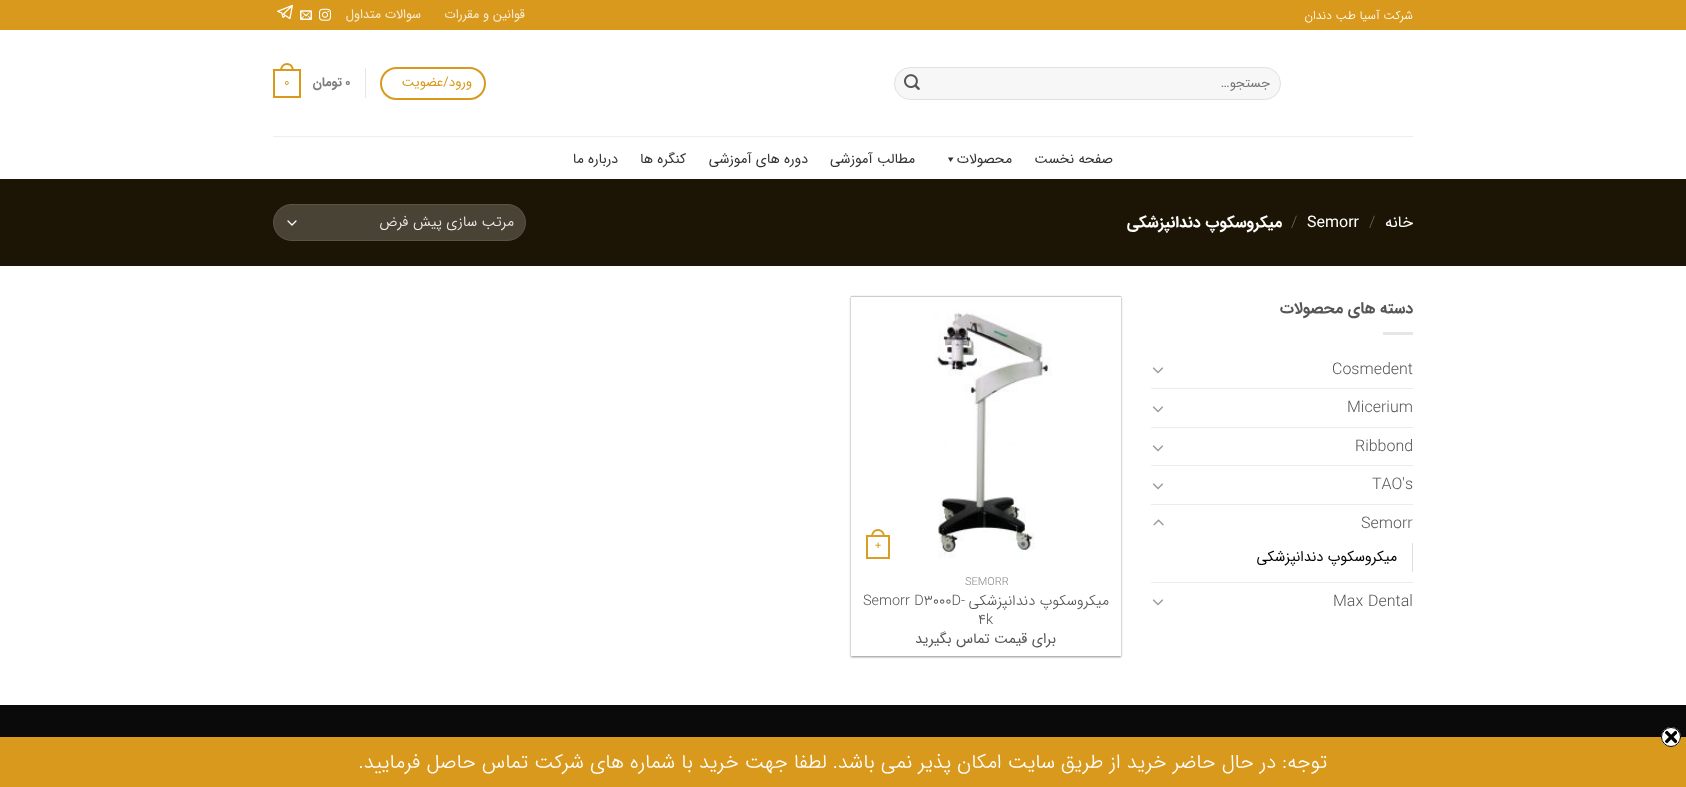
(async () => {
  const canvas = document.querySelector("canvas");
  canvas.width = 1686;
  canvas.height = 787;
  const ctx = canvas.getContext("2d");
  ctx.miterLimit = 4;
  ctx.fontKerning = "normal";
  async function loadImage(src) {
    const img = new Image();
    img.src = src;
    await img.decode();
    return img;
  }
  let path;

  ctx.fillStyle = "#ffffff";
  ctx.fillRect(0, 0, 1686, 787);
  ctx.fillStyle = "#d8991c";
  ctx.fillRect(0, 0, 1686, 30);
  ctx.drawImage(await loadImage("img/1.png"), 319, 8, 12, 13);
  ctx.drawImage(await loadImage("img/2.png"), 300, 10, 12, 10);
  ctx.drawImage(await loadImage("img/3.png"), 277, 4, 16, 16);
  ctx.fillStyle = "#f7f7f7";
  ctx.beginPath();
  ctx.roundRect(894, 67, 387, 33, 16.5);
  ctx.fill();
  ctx.beginPath();
  ctx.roundRect(894.5, 67.5, 386, 32, 16);
  ctx.strokeStyle = "rgba(0, 0, 0, 0.09)";
  ctx.stroke();
  ctx.drawImage(await loadImage("img/4.png"), 904, 74, 16, 16);
  ctx.beginPath();
  ctx.roundRect(381, 68, 104, 31, 15.5);
  ctx.strokeStyle = "#d8991c";
  ctx.lineWidth = 2;
  ctx.stroke();
  ctx.fillStyle = "#e6e6e6";
  ctx.fillRect(365, 68, 1, 30);
  ctx.strokeRect(274, 70, 26, 27);
  ctx.fillStyle = "#d8991c";
  path = new Path2D("M287 63C291.5 63 294 67 294 71H280C280 67 282.5 63 287 63ZM287 65C290.5 65 292 68 292 71H282C282 68 283.5 65 287 65Z");
  ctx.fill(path, "evenodd");
  ctx.fillStyle = "#eeeeee";
  ctx.fillRect(273, 136, 1140, 1);
  ctx.fillStyle = "#333333";
  path = new Path2D("M953.5 157.5L950.5 162L948 157.5Z");
  ctx.fill(path);
  ctx.fillStyle = "#1c1404";
  ctx.fillRect(0, 179, 1686, 87);
  ctx.fillStyle = "#494336";
  ctx.beginPath();
  ctx.roundRect(273, 204, 253, 37, 18.5);
  ctx.fill();
  path = new Path2D("M288 221L292 225L296 221");
  ctx.strokeStyle = "#ffffff";
  ctx.lineWidth = 1.3;
  ctx.lineCap = "round";
  ctx.lineJoin = "round";
  ctx.stroke(path);
  ctx.beginPath();
  ctx.roundRect(273.5, 204.5, 252, 36, 18);
  ctx.strokeStyle = "rgba(255, 255, 255, 0.09)";
  ctx.lineWidth = 1;
  ctx.lineJoin = "miter";
  ctx.stroke();
  ctx.fillStyle = "#e6e6e6";
  ctx.fillRect(1383, 332, 30, 3);
  ctx.drawImage(await loadImage("img/5.png"), 1152, 367, 12, 7);
  ctx.fillStyle = "#ececec";
  ctx.fillRect(1151, 388, 262, 1);
  ctx.drawImage(await loadImage("img/5.png"), 1152, 406, 12, 7);
  ctx.fillRect(1151, 427, 262, 1);
  ctx.drawImage(await loadImage("img/5.png"), 1152, 445, 12, 7);
  ctx.fillRect(1151, 465, 262, 1);
  ctx.drawImage(await loadImage("img/5.png"), 1152, 483, 12, 7);
  ctx.fillRect(1151, 504, 262, 1);
  ctx.drawImage(await loadImage("img/6.png"), 1153, 519, 11, 7);
  ctx.fillStyle = "#dddddd";
  ctx.fillRect(1412, 543, 1, 29);
  ctx.fillStyle = "#ececec";
  ctx.fillRect(1151, 582, 262, 1);
  ctx.drawImage(await loadImage("img/5.png"), 1152, 599, 12, 7);
  ctx.save();
  path = new Path2D("M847 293H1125V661H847ZM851 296H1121V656H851Z");
  ctx.clip(path, "evenodd");
  ctx.fillStyle = "rgba(0, 0, 0, 0.24)";
  ctx.filter = "blur(1px)";
  ctx.beginPath();
  ctx.rect(851, 297, 270, 360);
  ctx.fill();
  ctx.filter = "none";
  ctx.filter = "blur(1px)";
  ctx.beginPath();
  ctx.rect(851, 297, 270, 360);
  ctx.fill();
  ctx.filter = "none";
  ctx.restore();
  ctx.fillStyle = "#cccccc";
  ctx.fillRect(851, 296, 270, 1);
  ctx.drawImage(await loadImage("img/7.png"), 934, 310, 118, 249);
  ctx.strokeStyle = "#da9e27";
  ctx.lineWidth = 2;
  ctx.strokeRect(867, 536, 22, 22);
  ctx.fillStyle = "#da9e27";
  path = new Path2D("M878 529C882.5 529 885 533 885 537H871C871 533 873.5 529 878 529ZM878 531C881.5 531 883 534 883 537H873C873 534 874.5 531 878 531Z");
  ctx.fill(path, "evenodd");
  ctx.fillStyle = "#0a0a0a";
  ctx.fillRect(0, 705, 1686, 32);
  ctx.fillStyle = "#d8991c";
  ctx.fillRect(0, 737, 1686, 50);
  ctx.fillStyle = "#ffffff";
  ctx.beginPath();
  ctx.arc(1671, 737, 10, 0, Math.PI * 2);
  ctx.fill();
  ctx.drawImage(await loadImage("img/8.png"), 1665, 730, 12, 14);
  ctx.beginPath();
  ctx.arc(1671, 737, 9.5, 0, Math.PI * 2);
  ctx.strokeStyle = "#000000";
  ctx.lineWidth = 1;
  ctx.stroke();
  ctx.direction = "rtl";
  ctx.font = "300 12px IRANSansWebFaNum";
  ctx.fillText("شرکت آسیا طب دندان", 1413, 19);
  ctx.font = "12.75px IRANSansWebFaNum";
  ctx.fillStyle = "#f7ebd2";
  ctx.fillText("قوانین و مقررات", 525, 18);
  ctx.fillText("سوالات متداول", 421, 18);
  ctx.font = "13.25px IRANSansWebFaNum";
  ctx.fillStyle = "#757575";
  ctx.fillText("جستجو…", 1270, 87);
  ctx.letterSpacing = "0.5px";
  ctx.fillStyle = "#d8991c";
  ctx.fillText("ورود/عضویت", 472, 86);
  ctx.letterSpacing = "0.25px";
  ctx.direction = "ltr";
  ctx.font = "bold 12.75px IRANSansWebFaNum";
  ctx.fillStyle = "#7d7d7d";
  ctx.fillText("۰", 345, 86);
  ctx.direction = "rtl";
  ctx.fillText("تومان", 342, 86);
  ctx.direction = "ltr";
  ctx.font = "12.75px IRANSansWebFaNum";
  ctx.fillStyle = "#d8991c";
  ctx.fillText("0", 284, 86);
  ctx.letterSpacing = "0px";
  ctx.direction = "rtl";
  ctx.font = "14px IRANSansWebFaNum";
  ctx.fillStyle = "#333333";
  for (const [text, x, y] of [
    ["صفحه نخست", 1113, 163],
    ["محصولات", 1012, 163],
    ["مطالب آموزشی", 915, 163],
    ["دوره های آموزشی", 808, 163],
    ["کنگره ها", 686, 163],
    ["درباره ما", 618, 163],
  ]) {
    ctx.fillText(text, x, y);
  }
  ctx.font = "16px IRANSansWebFaNum";
  ctx.fillStyle = "#ffffff";
  ctx.fillText("خانه", 1413, 227);
  ctx.direction = "ltr";
  ctx.font = "300 16px IRANSansWebFaNum";
  ctx.fillStyle = "#6b665c";
  ctx.fillText("/", 1369, 227);
  ctx.font = "16px IRANSansWebFaNum";
  ctx.fillStyle = "#ffffff";
  ctx.fillText("Semorr", 1307, 227);
  ctx.font = "300 16px IRANSansWebFaNum";
  ctx.fillStyle = "#6b665c";
  ctx.fillText("/", 1291, 227);
  ctx.direction = "rtl";
  ctx.font = "bold 16px IRANSansWebFaNum";
  ctx.fillStyle = "#ffffff";
  ctx.fillText("میکروسکوپ دندانپزشکی", 1282, 227);
  ctx.font = "300 14.5px IRANSansWebFaNum";
  ctx.fillStyle = "#f1f1f1";
  ctx.fillText("مرتب سازی پیش فرض", 514, 226);
  ctx.font = "bold 16px IRANSansWebFaNum";
  ctx.fillStyle = "#555555";
  ctx.fillText("دسته های محصولات", 1413, 313);
  ctx.direction = "ltr";
  ctx.font = "300 16px IRANSansWebFaNum";
  for (const [text, x, y] of [
    ["Cosmedent", 1332, 374],
    ["Micerium", 1347, 412],
    ["Ribbond", 1355, 451],
    ["TAO's", 1372, 489],
    ["Semorr", 1361, 528],
  ]) {
    ctx.fillText(text, x, y);
  }
  ctx.direction = "rtl";
  ctx.font = "14.5px IRANSansWebFaNum";
  ctx.fillStyle = "#000000";
  ctx.fillText("میکروسکوپ دندانپزشکی", 1397, 561);
  ctx.direction = "ltr";
  ctx.font = "300 16px IRANSansWebFaNum";
  ctx.fillStyle = "#555555";
  ctx.fillText("Max Dental", 1333, 606);
  ctx.font = "11px IRANSansWebFaNum";
  ctx.fillStyle = "#da9e27";
  ctx.fillText("+", 875, 549);
  ctx.font = "300 11px IRANSansWebFaNum";
  ctx.fillStyle = "#888888";
  ctx.fillText("SEMORR", 965, 585);
  ctx.direction = "rtl";
  ctx.font = "300 14.5px IRANSansWebFaNum";
  ctx.fillStyle = "#555555";
  ctx.fillText("میکروسکوپ دندانپزشکی", 1109, 605);
  ctx.direction = "ltr";
  ctx.fillText("Semorr D3000D-", 863, 605);
  ctx.fillText("4k", 978, 624);
  ctx.direction = "rtl";
  ctx.font = "14.5px IRANSansWebFaNum";
  ctx.fillText("برای قیمت تماس بگیرید", 1056, 643);
  ctx.font = "300 20px IRANSansWebFaNum";
  ctx.fillStyle = "#ffffff";
  ctx.fillText("توجه: در حال حاضر خرید از طریق سایت امکان پذیر نمی باشد. لطفا جهت خرید با شماره های شرکت تماس حاصل فرمایید.", 1327, 768);
})();
